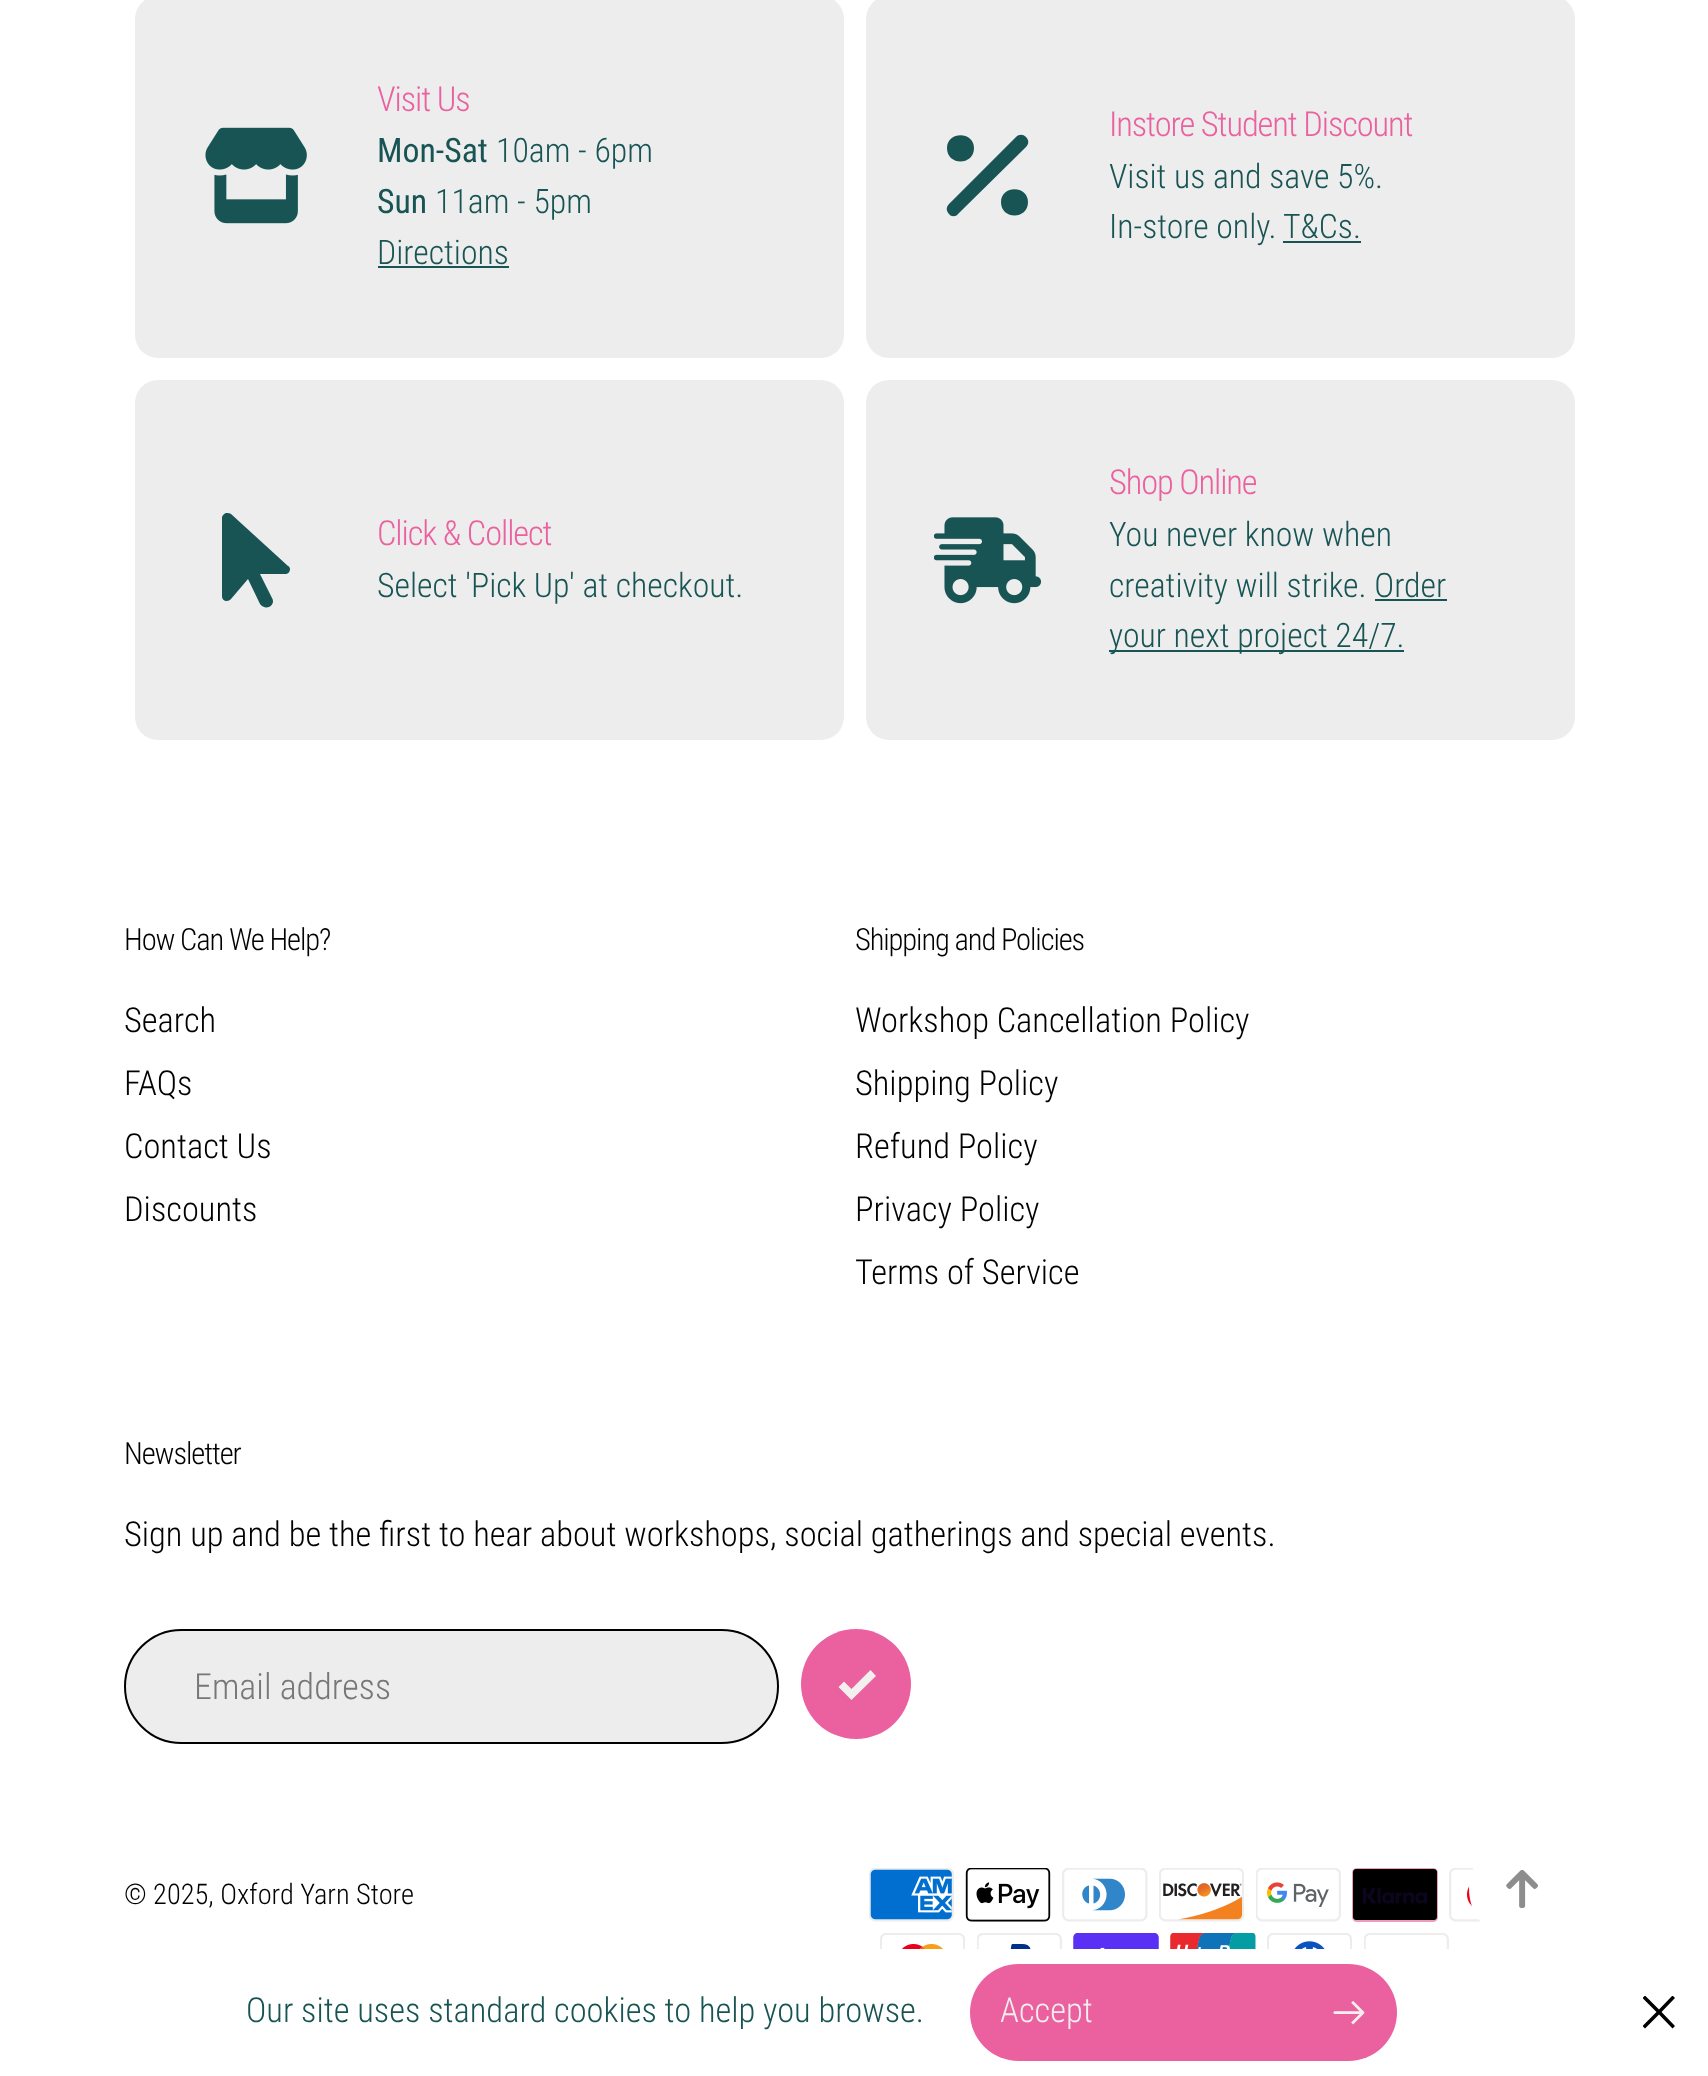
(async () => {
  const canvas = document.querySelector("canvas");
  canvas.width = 1708;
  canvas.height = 2076;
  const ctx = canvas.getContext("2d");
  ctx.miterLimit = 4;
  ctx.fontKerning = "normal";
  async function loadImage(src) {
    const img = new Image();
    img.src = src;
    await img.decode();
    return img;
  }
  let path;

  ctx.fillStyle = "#ffffff";
  ctx.fillRect(0, 0, 1708, 2076);
  ctx.fillStyle = "#ededed";
  ctx.beginPath();
  ctx.roundRect(135, -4, 709, 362, 23);
  ctx.fill();
  ctx.drawImage(await loadImage("img/1.png"), 205, 127, 102, 97);
  ctx.fillStyle = "#185454";
  ctx.fillRect(378, 266, 131, 2);
  ctx.fillStyle = "#ededed";
  ctx.beginPath();
  ctx.roundRect(866, -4, 709, 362, 23);
  ctx.fill();
  ctx.fillStyle = "#185454";
  path = new Path2D("M1026 147C1029 144 1029 140 1026 137C1023 134 1019 134 1016 137L949 204C946 207 946 211 949 214C951 217 956 217 958 214ZM974 148C974 131 947 131 947 148C947 166 974 166 974 148ZM1028 202C1028 185 1001 185 1001 202C1001 220 1028 220 1028 202Z");
  ctx.fill(path);
  ctx.fillRect(1283, 241, 78, 2);
  ctx.fillStyle = "#ededed";
  ctx.beginPath();
  ctx.roundRect(135, 380, 709, 360, 23);
  ctx.fill();
  ctx.fillStyle = "#185454";
  path = new Path2D("M222 518V596C222 599 224 601 227 601C228 601 230 600 231 599L248 579L260 604C262 607 266 608 269 607C273 605 274 601 272 598L260 574H285C288 574 290 572 290 569C290 568 289 566 288 566L231 514C230 513 228 513 227 513C225 513 222 515 222 518Z");
  ctx.fill(path);
  ctx.fillStyle = "#ededed";
  ctx.beginPath();
  ctx.roundRect(866, 380, 709, 360, 23);
  ctx.fill();
  ctx.drawImage(await loadImage("img/2.png"), 934, 517, 107, 87);
  ctx.fillStyle = "#185454";
  ctx.fillRect(1375, 599, 72, 2);
  ctx.fillRect(1109, 650, 295, 2);
  ctx.fillStyle = "#ededed";
  ctx.beginPath();
  ctx.roundRect(125, 1630, 653, 113, 56.5);
  ctx.fill();
  ctx.strokeStyle = "#000000";
  ctx.lineWidth = 2;
  ctx.stroke();
  ctx.fillStyle = "#eb609f";
  ctx.beginPath();
  ctx.arc(856, 1684, 55, 0, Math.PI * 2);
  ctx.fill();
  ctx.fillStyle = "#f2efee";
  path = new Path2D("M851.5 1700L838.5 1687L844 1681.5L851.5 1689L870.5 1670L876 1676Z");
  ctx.fill(path);
  ctx.drawImage(await loadImage("img/3.png"), 869, 1868, 85, 54);
  ctx.drawImage(await loadImage("img/4.png"), 965, 1868, 86, 54);
  ctx.drawImage(await loadImage("img/5.png"), 1062, 1868, 86, 54);
  ctx.drawImage(await loadImage("img/6.png"), 1159, 1868, 85, 54);
  ctx.drawImage(await loadImage("img/7.png"), 1256, 1868, 85, 54);
  ctx.drawImage(await loadImage("img/8.png"), 1352, 1868, 86, 54);
  ctx.drawImage(await loadImage("img/9.png"), 1449, 1868, 32, 54);
  ctx.drawImage(await loadImage("img/10.png"), 880, 1933, 85, 16);
  ctx.drawImage(await loadImage("img/11.png"), 977, 1933, 85, 16);
  ctx.drawImage(await loadImage("img/12.png"), 1073, 1933, 86, 16);
  ctx.drawImage(await loadImage("img/13.png"), 1170, 1933, 86, 16);
  ctx.drawImage(await loadImage("img/14.png"), 1267, 1933, 85, 16);
  ctx.drawImage(await loadImage("img/15.png"), 1364, 1933, 85, 16);
  ctx.fillStyle = "#ffffff";
  ctx.beginPath();
  ctx.arc(1522, 1889, 53, 0, Math.PI * 2);
  ctx.fill();
  ctx.drawImage(await loadImage("img/16.png"), 1506, 1870, 32, 38);
  ctx.fillStyle = "#eb609f";
  ctx.beginPath();
  ctx.roundRect(970, 1964, 427, 97, 48.5);
  ctx.fill();
  ctx.drawImage(await loadImage("img/17.png"), 1333, 2000, 32, 25);
  ctx.save();
  ctx.beginPath();
  ctx.rect(1643, 1996, 33, 34);
  ctx.clip();
  ctx.fillStyle = "#000000";
  path = new Path2D("M1659 2009.5L1672.5 1995.5L1675 1998L1661.5 2012L1675 2026L1672.5 2028.5L1659 2014.5L1645 2028.5L1642.5 2026L1656.5 2012L1642.5 1998L1645 1995.5Z");
  ctx.fill(path, "evenodd");
  ctx.restore();
  ctx.letterSpacing = "-1.1px";
  ctx.font = "300 34.45px Roboto Condensed";
  ctx.fillText("Visit Us", 377, 111);
  ctx.letterSpacing = "0px";
  ctx.font = "33.75px Roboto Condensed";
  ctx.fillStyle = "#185454";
  ctx.fillText("Mon-Sat", 377, 162);
  ctx.font = "300 33.75px Roboto Condensed";
  ctx.fillText("10am - 6pm", 496, 162);
  ctx.font = "33.75px Roboto Condensed";
  ctx.fillText("Sun", 377, 213);
  ctx.font = "300 33.75px Roboto Condensed";
  ctx.fillText("11am - 5pm", 435, 213);
  ctx.fillText("Directions", 377, 264);
  ctx.letterSpacing = "-1.1px";
  ctx.font = "300 34.45px Roboto Condensed";
  ctx.fillStyle = "#eb609f";
  ctx.fillText("Instore Student Discount", 1109, 136);
  ctx.letterSpacing = "0px";
  ctx.font = "300 33.75px Roboto Condensed";
  ctx.fillStyle = "#185454";
  for (const [text, x, y] of [
    ["Visit us and save 5%.", 1109, 188],
    ["In-store only.", 1109, 238],
    ["T&Cs.", 1283, 238],
  ]) {
    ctx.fillText(text, x, y);
  }
  ctx.letterSpacing = "-1.1px";
  ctx.font = "300 34.45px Roboto Condensed";
  ctx.fillStyle = "#eb609f";
  ctx.fillText("Click & Collect", 377, 545);
  ctx.letterSpacing = "0px";
  ctx.font = "300 33.75px Roboto Condensed";
  ctx.fillStyle = "#185454";
  ctx.fillText("Select 'Pick Up' at checkout.", 377, 597);
  ctx.letterSpacing = "-1.1px";
  ctx.font = "300 34.45px Roboto Condensed";
  ctx.fillStyle = "#eb609f";
  ctx.fillText("Shop Online", 1109, 494);
  ctx.letterSpacing = "0px";
  ctx.font = "300 33.75px Roboto Condensed";
  ctx.fillStyle = "#185454";
  for (const [text, x, y] of [
    ["You never know when", 1109, 546],
    ["creativity will strike. Order", 1109, 597],
    ["your next project 24/7.", 1109, 647],
  ]) {
    ctx.fillText(text, x, y);
  }
  ctx.letterSpacing = "-1.1px";
  ctx.font = "300 30.5px Roboto Condensed";
  ctx.fillStyle = "#000000";
  ctx.fillText("How Can We Help?", 124, 950);
  ctx.letterSpacing = "0px";
  ctx.font = "300 34.45px Roboto Condensed";
  for (const [text, x, y] of [
    ["Search", 124, 1032],
    ["FAQs", 124, 1095],
    ["Contact Us", 124, 1158],
    ["Discounts", 124, 1221],
  ]) {
    ctx.fillText(text, x, y);
  }
  ctx.letterSpacing = "-1.1px";
  ctx.font = "300 30.5px Roboto Condensed";
  ctx.fillText("Shipping and Policies", 855, 950);
  ctx.letterSpacing = "0px";
  ctx.font = "300 34.45px Roboto Condensed";
  for (const [text, x, y] of [
    ["Workshop Cancellation Policy", 855, 1032],
    ["Shipping Policy", 855, 1095],
    ["Refund Policy", 855, 1158],
    ["Privacy Policy", 855, 1221],
    ["Terms of Service", 855, 1284],
  ]) {
    ctx.fillText(text, x, y);
  }
  ctx.letterSpacing = "-1.1px";
  ctx.font = "300 30.5px Roboto Condensed";
  ctx.fillText("Newsletter", 124, 1464);
  ctx.letterSpacing = "0px";
  ctx.font = "300 34.45px Roboto Condensed";
  ctx.fillText("Sign up and be the first to hear about workshops, social gatherings and special events.", 124, 1546);
  ctx.font = "300 36px Roboto Condensed";
  ctx.fillStyle = "#777777";
  ctx.fillText("Email address", 194, 1699);
  ctx.font = "300 28.4px Roboto Condensed";
  ctx.fillStyle = "#000000";
  ctx.fillText("© 2025, Oxford Yarn Store", 124, 1904);
  ctx.font = "300 34.45px Roboto Condensed";
  ctx.fillStyle = "#185454";
  ctx.fillText("Our site uses standard cookies to help you browse.", 246, 2022);
  ctx.fillStyle = "#f2efee";
  ctx.fillText("Accept", 1000, 2022);
})();
